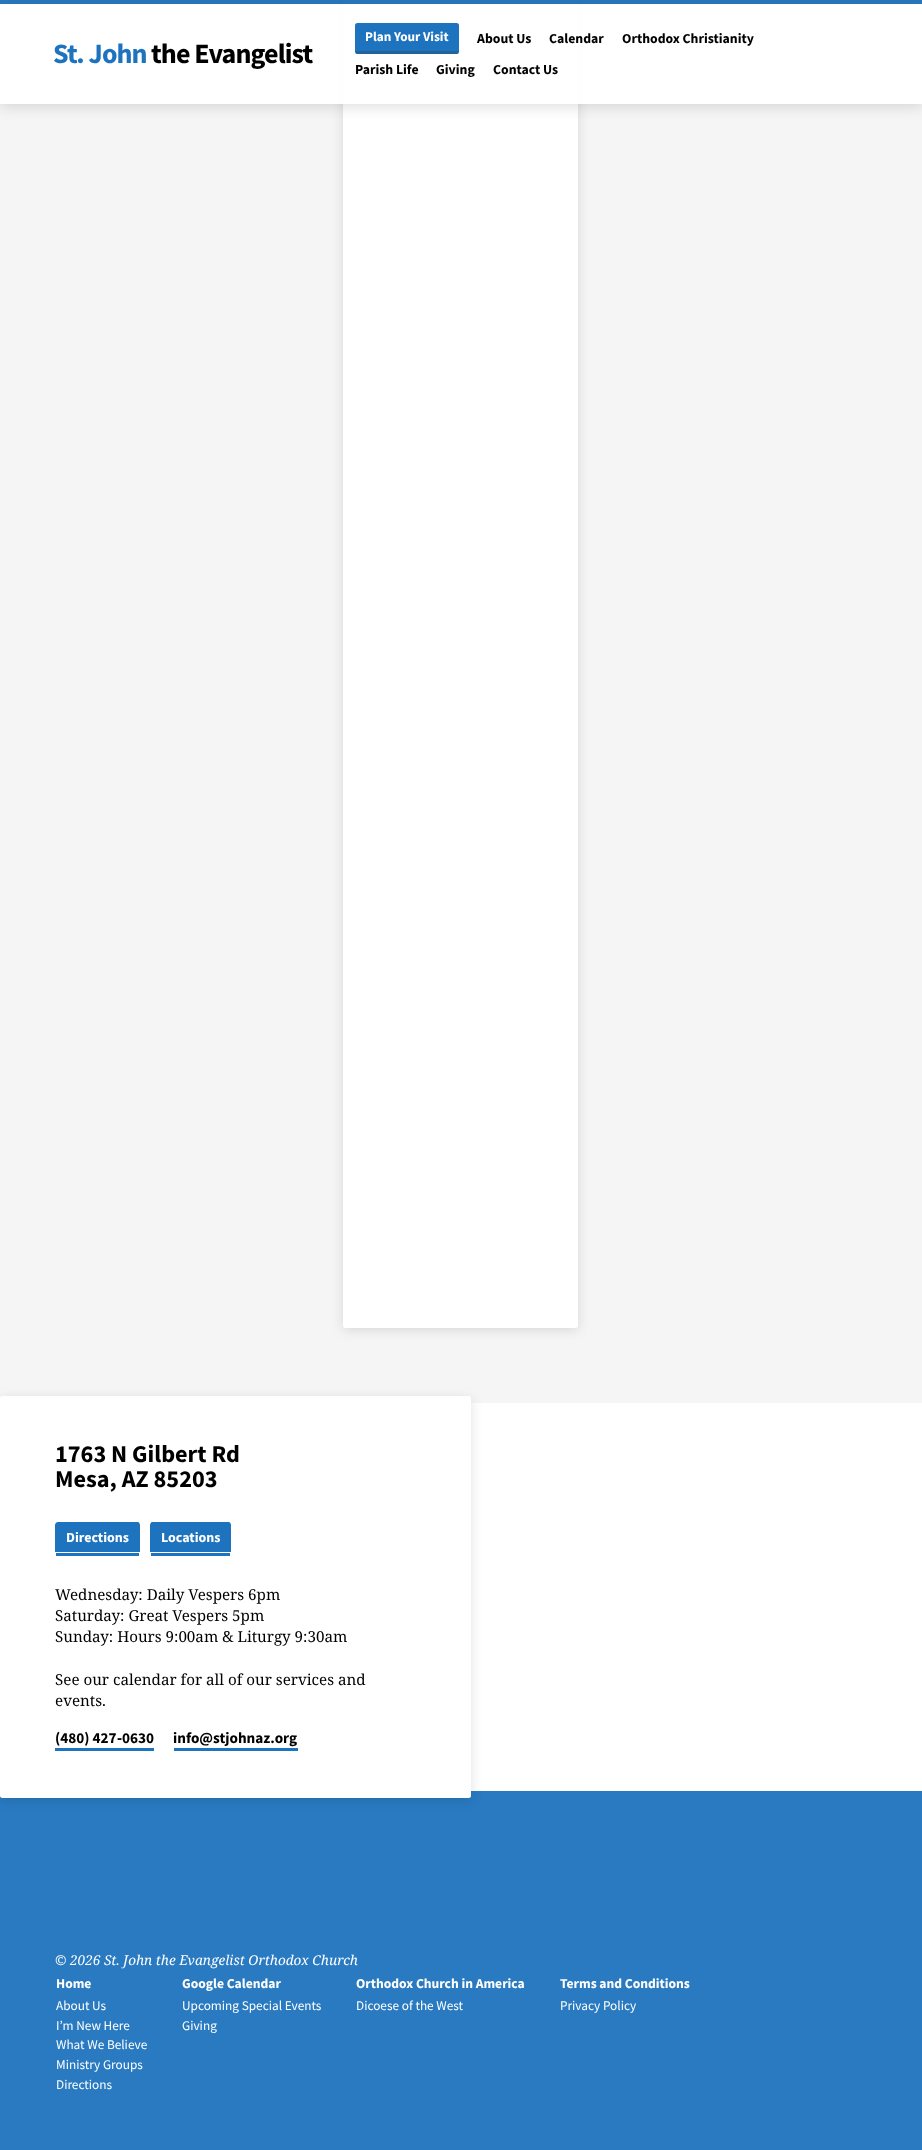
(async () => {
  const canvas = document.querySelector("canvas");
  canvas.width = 922;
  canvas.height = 2150;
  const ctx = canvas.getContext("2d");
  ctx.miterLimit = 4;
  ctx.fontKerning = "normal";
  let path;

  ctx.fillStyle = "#ffffff";
  ctx.fillRect(0, 0, 922, 2150);
  ctx.fillStyle = "#f5f5f5";
  ctx.fillRect(0, 0, 922, 1403);
  ctx.fillStyle = "rgba(0, 0, 0, 0.12)";
  ctx.filter = "blur(6px)";
  ctx.beginPath();
  ctx.roundRect(343, -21, 235, 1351, 2.5);
  ctx.fill();
  ctx.filter = "none";
  ctx.fillStyle = "#ffffff";
  ctx.beginPath();
  ctx.roundRect(343, -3, 235, 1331, 2.5);
  ctx.fill();
  ctx.fillStyle = "rgba(30, 115, 190, 0.95)";
  ctx.fillRect(0, 0, 922, 4);
  ctx.fillStyle = "rgba(255, 255, 255, 0.95)";
  ctx.fillRect(0, 4, 922, 100);
  ctx.save();
  path = new Path2D("M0 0H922V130H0ZM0 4H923V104H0Z");
  ctx.clip(path, "evenodd");
  ctx.fillStyle = "rgba(0, 0, 0, 0.14)";
  ctx.filter = "blur(7.5px)";
  ctx.beginPath();
  ctx.rect(0, 6, 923, 100);
  ctx.fill();
  ctx.filter = "none";
  ctx.restore();
  ctx.fillStyle = "#1e73be";
  ctx.beginPath();
  ctx.roundRect(355, 23, 104, 31, 2.5);
  ctx.fill();
  ctx.fillStyle = "rgba(50, 50, 50, 0.25)";
  ctx.fillRect(356, 51, 102, 3);
  ctx.fillStyle = "#297ac1";
  ctx.fillRect(0, 1791, 922, 359);
  ctx.fillStyle = "rgba(0, 0, 0, 0.12)";
  ctx.filter = "blur(6px)";
  ctx.beginPath();
  ctx.roundRect(0, 1399, 471, 401, 2.5);
  ctx.fill();
  ctx.filter = "none";
  ctx.fillStyle = "#ffffff";
  ctx.beginPath();
  ctx.roundRect(0, 1396, 471, 402, 2.5);
  ctx.fill();
  ctx.fillStyle = "#1e73be";
  path = new Path2D("M58 1522H138C139 1522 140 1524 140 1525V1552H55V1525C55 1524 56 1522 58 1522Z");
  ctx.fill(path);
  ctx.fillRect(56, 1553, 83, 3);
  path = new Path2D("M152 1522H229C230 1522 231 1524 231 1525V1552H150V1525C150 1524 151 1522 152 1522Z");
  ctx.fill(path);
  for (const [x, y, w, h, color] of [
    [151, 1553, 79, 3, "#1e73be"],
    [55, 1748, 99, 3, "#1e73be"],
    [174, 1748, 124, 3, "#1e73be"],
  ]) {
    ctx.fillStyle = color;
    ctx.fillRect(x, y, w, h);
  }
  ctx.letterSpacing = "-0.9px";
  ctx.font = "bold 28px Source Sans Pro";
  ctx.fillText("St. John", 53, 63);
  ctx.fillStyle = "#000000";
  ctx.fillText("the Evangelist", 151, 63);
  ctx.letterSpacing = "0px";
  ctx.font = "bold 13.25px Source Sans Pro";
  ctx.fillStyle = "#ffffff";
  ctx.fillText("Plan Your Visit", 365, 41);
  ctx.font = "bold 13.75px Source Sans Pro";
  ctx.fillStyle = "#000000";
  for (const [text, x, y] of [
    ["About Us", 477, 43],
    ["Calendar", 549, 43],
    ["Orthodox Christianity", 622, 43],
    ["Parish Life", 355, 74],
    ["Giving", 436, 74],
    ["Contact Us", 493, 74],
  ]) {
    ctx.fillText(text, x, y);
  }
  ctx.font = "bold 24.25px Source Sans Pro";
  ctx.fillText("1763 N Gilbert Rd", 55, 1462);
  ctx.fillText("Mesa, AZ 85203", 55, 1487);
  ctx.font = "bold 14px Source Sans Pro";
  ctx.fillStyle = "#ffffff";
  ctx.fillText("Directions", 66, 1542);
  ctx.fillText("Locations", 161, 1542);
  ctx.font = "15.2px Noto Serif";
  ctx.fillStyle = "#000000";
  for (const [text, x, y] of [
    ["Wednesday: Daily Vespers 6pm", 55, 1600],
    ["Saturday: Great Vespers 5pm", 55, 1621],
    ["Sunday: Hours 9:00am & Liturgy 9:30am", 55, 1642],
    ["See our calendar for all of our services and", 55, 1685],
    ["events.", 55, 1706],
  ]) {
    ctx.fillText(text, x, y);
  }
  ctx.font = "bold 15.2px Source Sans Pro";
  ctx.fillText("(480) 427", 55, 1743);
  ctx.font = "bold 15.2px Liberation Sans";
  ctx.fillText("‐", 117, 1743);
  ctx.font = "bold 15.2px Source Sans Pro";
  ctx.fillText("0630", 122, 1743);
  ctx.fillText("info@stjohnaz.org", 173, 1743);
  ctx.font = "italic 13.6px Noto Serif";
  ctx.fillStyle = "#ffffff";
  ctx.fillText("© 2026 St. John the Evangelist Orthodox Church", 55, 1965);
  ctx.font = "bold 13.6px Source Sans Pro";
  ctx.fillText("Home", 56, 1988);
  ctx.font = "13.25px Source Sans Pro";
  for (const [text, x, y] of [
    ["About Us", 56, 2010],
    ["I’m New Here", 56, 2030],
    ["What We Believe", 56, 2049],
    ["Ministry Groups", 56, 2069],
    ["Directions", 56, 2089],
  ]) {
    ctx.fillText(text, x, y);
  }
  ctx.font = "bold 13.6px Source Sans Pro";
  ctx.fillText("Google Calendar", 182, 1988);
  ctx.font = "13.25px Source Sans Pro";
  ctx.fillText("Upcoming Special Events", 182, 2010);
  ctx.fillText("Giving", 182, 2030);
  ctx.font = "bold 13.6px Source Sans Pro";
  ctx.fillText("Orthodox Church in America", 356, 1988);
  ctx.font = "13.25px Source Sans Pro";
  ctx.fillText("Dicoese of the West", 356, 2010);
  ctx.font = "bold 13.6px Source Sans Pro";
  ctx.fillText("Terms and Conditions", 560, 1988);
  ctx.font = "13.25px Source Sans Pro";
  ctx.fillText("Privacy Policy", 560, 2010);
})();
